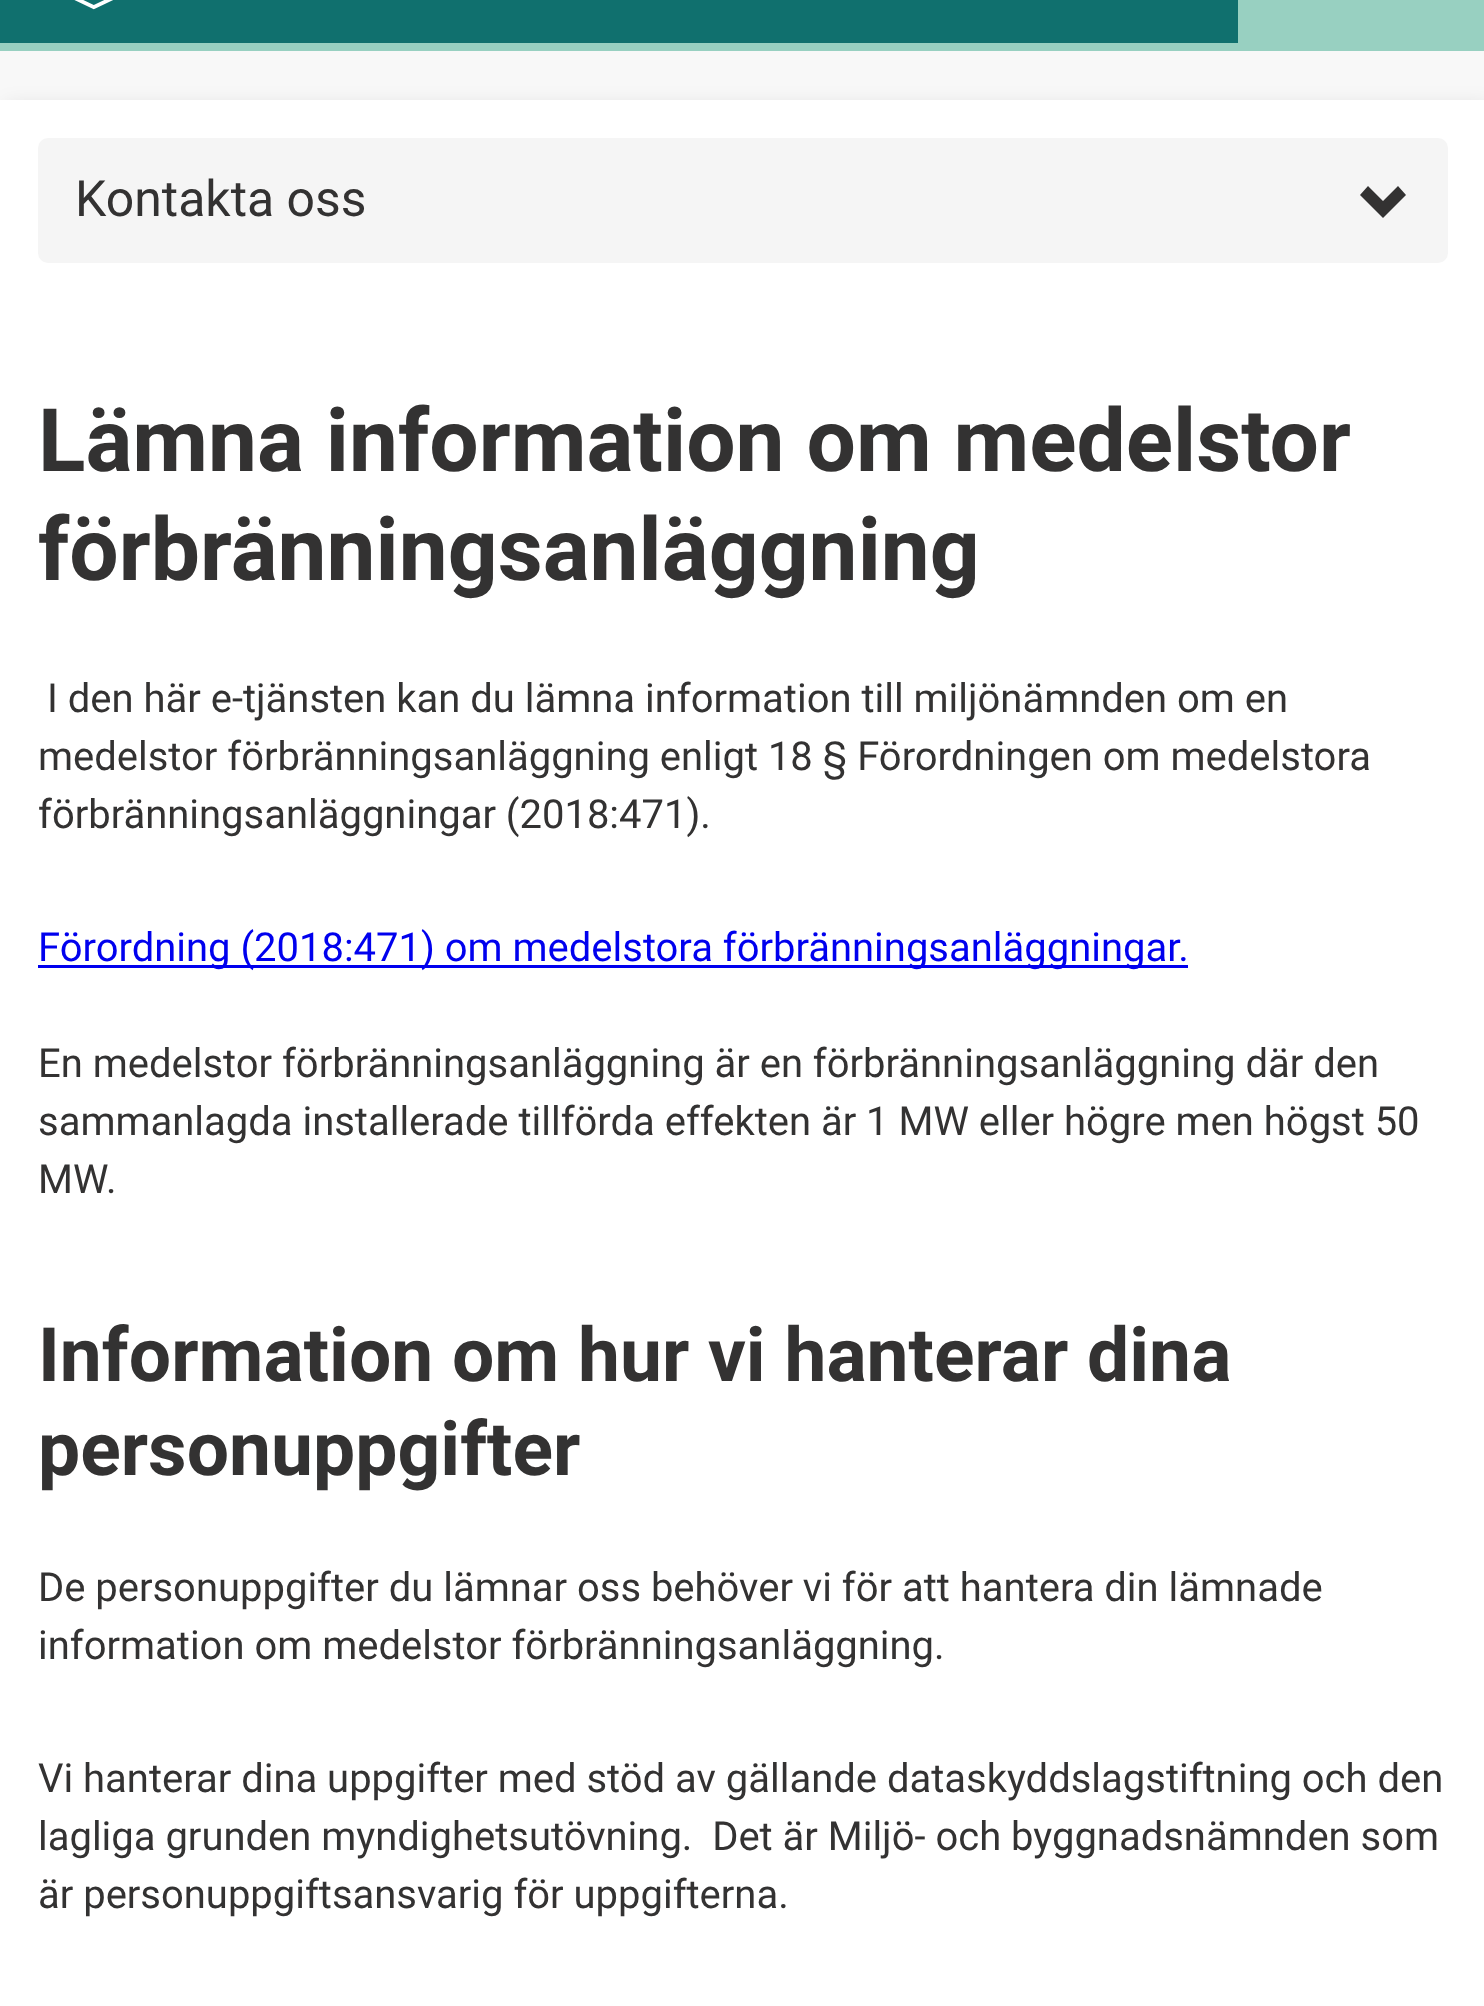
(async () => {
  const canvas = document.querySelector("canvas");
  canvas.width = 1484;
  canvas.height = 2006;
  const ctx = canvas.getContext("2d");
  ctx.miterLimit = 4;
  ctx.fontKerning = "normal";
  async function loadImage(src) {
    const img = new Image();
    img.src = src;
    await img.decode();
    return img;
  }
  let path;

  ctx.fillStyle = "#f8f8f8";
  ctx.fillRect(0, 0, 1484, 2006);
  ctx.fillStyle = "#10706e";
  ctx.fillRect(0, 0, 1238, 43);
  ctx.drawImage(await loadImage("img/1.png"), 74, 0, 39, 10);
  ctx.fillStyle = "#98d0c1";
  ctx.fillRect(1238, 0, 246, 43);
  ctx.fillRect(0, 43, 1484, 8);
  ctx.fillStyle = "rgba(0, 0, 0, 0.1)";
  ctx.filter = "blur(10px)";
  ctx.beginPath();
  ctx.rect(5, 105, 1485, 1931);
  ctx.fill();
  ctx.filter = "none";
  ctx.fillStyle = "#ffffff";
  ctx.fillRect(0, 100, 1484, 1906);
  ctx.fillStyle = "#f5f5f5";
  ctx.beginPath();
  ctx.roundRect(38, 138, 1410, 125, 10);
  ctx.fill();
  ctx.fillStyle = "#333232";
  path = new Path2D("M1406 195L1383 218L1360 195L1368 186L1383 201L1398 186Z");
  ctx.fill(path);
  ctx.fillStyle = "#0000ee";
  ctx.fillRect(38, 965, 1150, 3);
  ctx.font = "50px Roboto";
  ctx.fillStyle = "#333232";
  ctx.fillText("Kontakta oss", 75, 216);
  ctx.font = "bold 87.5px Roboto";
  ctx.fillText("Lämna information om medelstor", 38, 471);
  ctx.fillText("förbränningsanläggning", 38, 580);
  ctx.font = "40px Roboto";
  for (const [text, x, y] of [
    ["I den här e-tjänsten kan du lämna information till miljönämnden om en", 47, 712],
    ["medelstor förbränningsanläggning enligt 18 § Förordningen om medelstora", 38, 770],
    ["förbränningsanläggningar (2018:471).", 38, 828],
  ]) {
    ctx.fillText(text, x, y);
  }
  ctx.fillStyle = "#0000ee";
  ctx.fillText("Förordning (2018:471) om medelstora förbränningsanläggningar.", 38, 961);
  ctx.fillStyle = "#333232";
  for (const [text, x, y] of [
    ["En medelstor förbränningsanläggning är en förbränningsanläggning där den", 38, 1077],
    ["sammanlagda installerade tillförda effekten är 1 MW eller högre men högst 50", 38, 1135],
    ["MW.", 38, 1193],
  ]) {
    ctx.fillText(text, x, y);
  }
  ctx.font = "bold 75px Roboto";
  ctx.fillText("Information om hur vi hanterar dina", 38, 1381);
  ctx.fillText("personuppgifter", 38, 1475);
  ctx.font = "40px Roboto";
  for (const [text, x, y] of [
    ["De personuppgifter du lämnar oss behöver vi för att hantera din lämnade", 38, 1601],
    ["information om medelstor förbränningsanläggning.", 38, 1659],
    ["Vi hanterar dina uppgifter med stöd av gällande dataskyddslagstiftning och den", 38, 1792],
    ["lagliga grunden myndighetsutövning.  Det är Miljö- och byggnadsnämnden som", 38, 1850],
    ["är personuppgiftsansvarig för uppgifterna.", 38, 1908],
  ]) {
    ctx.fillText(text, x, y);
  }
})();
